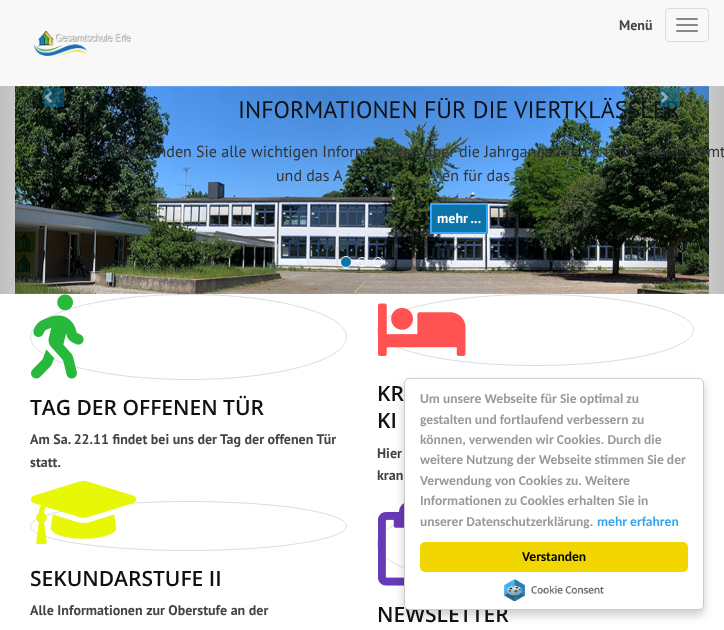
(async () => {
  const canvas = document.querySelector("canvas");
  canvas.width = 724;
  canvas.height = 630;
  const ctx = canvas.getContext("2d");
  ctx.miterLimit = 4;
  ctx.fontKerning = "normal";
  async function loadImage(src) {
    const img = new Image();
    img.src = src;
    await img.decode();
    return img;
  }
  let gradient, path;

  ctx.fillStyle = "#ffffff";
  ctx.fillRect(0, 0, 724, 630);
  ctx.fillStyle = "#f8f8f8";
  ctx.fillRect(0, 0, 724, 86);
  ctx.beginPath();
  ctx.roundRect(665.5, 8.5, 43, 33, 3.5);
  ctx.strokeStyle = "#dddddd";
  ctx.stroke();
  ctx.fillStyle = "#888888";
  ctx.beginPath();
  ctx.roundRect(676, 18, 22, 2, 1);
  ctx.fill();
  ctx.beginPath();
  ctx.roundRect(676, 24, 22, 2, 1);
  ctx.fill();
  ctx.beginPath();
  ctx.roundRect(676, 30, 22, 2, 1);
  ctx.fill();
  ctx.drawImage(await loadImage("img/1.png"), 34, 31, 97, 25);
  ctx.drawImage(await loadImage("img/4.png"), 15, 86, 694, 208);
  gradient = ctx.createLinearGradient(0, 190, 109, 190);
  gradient.addColorStop(0, "rgba(0, 0, 0, 0.25)");
  gradient.addColorStop(1, "rgba(0, 0, 0, 0)");
  ctx.fillStyle = gradient;
  ctx.fillRect(0, 86, 100, 208);
  ctx.fillStyle = "rgba(12, 116, 168, 0.5)";
  ctx.fillRect(44, 88, 20, 19);
  ctx.drawImage(await loadImage("img/2.png"), 45, 91, 7, 12);
  gradient = ctx.createLinearGradient(615, 190, 724, 190);
  gradient.addColorStop(0, "rgba(0, 0, 0, 0)");
  gradient.addColorStop(1, "rgba(0, 0, 0, 0.25)");
  ctx.fillStyle = gradient;
  ctx.fillRect(624, 86, 100, 208);
  ctx.fillStyle = "#0c74a8";
  ctx.beginPath();
  ctx.rect(431, 204, 56, 29);
  ctx.fill();
  ctx.strokeStyle = "#35a7ff";
  ctx.lineWidth = 2;
  ctx.stroke();
  ctx.beginPath();
  ctx.arc(346, 262, 5.5, 0, Math.PI * 2);
  ctx.fill();
  ctx.strokeStyle = "#ffffff";
  ctx.lineWidth = 1;
  ctx.stroke();
  ctx.beginPath();
  ctx.arc(362, 262, 4.5, 0, Math.PI * 2);
  ctx.stroke();
  ctx.beginPath();
  ctx.arc(378, 262, 4.5, 0, Math.PI * 2);
  ctx.stroke();
  path = new Path2D("M188.5 294.5C276 294.5 346.5 313.5 346.5 337C346.5 360.5 276 379.5 188.5 379.5C101 379.5 30.5 360.5 30.5 337C30.5 313.5 101 294.5 188.5 294.5Z");
  ctx.strokeStyle = "#dddddd";
  ctx.stroke(path);
  ctx.drawImage(await loadImage("img/5.png"), 31, 294, 53, 85);
  path = new Path2D("M535.5 294.5C623 294.5 693.5 310.5 693.5 330C693.5 349.5 623 365.5 535.5 365.5C448 365.5 377.5 349.5 377.5 330C377.5 310.5 448 294.5 535.5 294.5Z");
  ctx.stroke(path);
  ctx.drawImage(await loadImage("img/6.png"), 378, 303, 88, 53);
  path = new Path2D("M188.5 501.5C276 501.5 346.5 512.5 346.5 526C346.5 539.5 276 550.5 188.5 550.5C101 550.5 30.5 539.5 30.5 526C30.5 512.5 101 501.5 188.5 501.5Z");
  ctx.stroke(path);
  ctx.drawImage(await loadImage("img/7.png"), 31, 481, 105, 63);
  path = new Path2D("M535.5 501.5C623 501.5 693.5 520.5 693.5 544C693.5 567.5 623 586.5 535.5 586.5C448 586.5 377.5 567.5 377.5 544C377.5 520.5 448 501.5 535.5 501.5Z");
  ctx.stroke(path);
  ctx.drawImage(await loadImage("img/8.png"), 378, 503, 26, 83);
  ctx.fillStyle = "rgba(0, 0, 0, 0.2)";
  ctx.filter = "blur(5px)";
  ctx.beginPath();
  ctx.roundRect(404, 383, 300, 232, 5);
  ctx.fill();
  ctx.filter = "none";
  ctx.font = "bold 14px PT Sans";
  ctx.fillStyle = "#444444";
  ctx.fillText("Menü", 619, 30);
  ctx.font = "24px PT Sans";
  ctx.fillStyle = "#111111";
  ctx.fillText("INFORMATIONEN FÜR DIE VIERTKLÄSSLER", 238, 118);
  ctx.fillStyle = "rgba(12, 116, 168, 0.5)";
  ctx.fillRect(660, 88, 20, 19);
  ctx.drawImage(await loadImage("img/3.png"), 661, 91, 7, 12);
  ctx.font = "16px PT Sans";
  ctx.fillStyle = "#333333";
  for (const [text, x, y] of [
    ["Hier finden Sie alle wichtigen Informationen über die Jahrgangstufen 5 und 6 der Gesamt", 116, 157],
    ["und das A", 276, 181],
    ["en für das", 442, 181],
  ]) {
    ctx.fillText(text, x, y);
  }
  ctx.font = "bold 14px PT Sans";
  ctx.fillStyle = "#ffffff";
  ctx.fillText("mehr ...", 437, 223);
  ctx.font = "600 21px Open Sans";
  ctx.fillStyle = "#111111";
  ctx.fillText("TAG DER OFFENEN TÜR", 30, 415);
  ctx.font = "bold 14px PT Sans";
  ctx.fillStyle = "#444444";
  ctx.fillText("Am Sa. 22.11 findet bei uns der Tag der offenen Tür", 30, 444);
  ctx.fillText("statt.", 30, 467);
  ctx.font = "600 21px Open Sans";
  ctx.fillStyle = "#111111";
  ctx.fillText("KR", 377, 401);
  ctx.fillText("KI", 377, 428);
  ctx.font = "bold 14px PT Sans";
  ctx.fillStyle = "#444444";
  ctx.fillText("Hier", 377, 458);
  ctx.fillText("kran", 377, 480);
  ctx.font = "600 21px Open Sans";
  ctx.fillStyle = "#111111";
  ctx.fillText("SEKUNDARSTUFE II", 30, 586);
  ctx.font = "bold 14px PT Sans";
  ctx.fillStyle = "#444444";
  ctx.fillText("Alle Informationen zur Oberstufe an der", 30, 615);
  ctx.font = "600 21px Open Sans";
  ctx.fillStyle = "#111111";
  ctx.fillText("NEWSLETTER", 377, 622);
  ctx.fillStyle = "#ffffff";
  ctx.beginPath();
  ctx.roundRect(404.5, 378.5, 299, 231, 4.5);
  ctx.fill();
  ctx.strokeStyle = "#cccccc";
  ctx.stroke();
  ctx.font = "bold 13.6px Carlito";
  ctx.fillStyle = "#999999";
  for (const [text, x, y] of [
    ["Um unsere Webseite für Sie optimal zu", 420, 403],
    ["gestalten und fortlaufend verbessern zu", 420, 424],
    ["können, verwenden wir Cookies. Durch die", 420, 444],
    ["weitere Nutzung der Webseite stimmen Sie der", 420, 464],
    ["Verwendung von Cookies zu. Weitere", 420, 485],
    ["Informationen zu Cookies erhalten Sie in", 420, 505],
    ["unserer Datenschutzerklärung.", 420, 526],
  ]) {
    ctx.fillText(text, x, y);
  }
  ctx.fillStyle = "#31a8f0";
  ctx.fillText("mehr erfahren", 597, 526);
  ctx.fillStyle = "#f1d600";
  ctx.beginPath();
  ctx.roundRect(420, 542, 268, 30, 5);
  ctx.fill();
  ctx.fillStyle = "#000000";
  ctx.fillText("Verstanden", 522, 561);
  ctx.drawImage(await loadImage("img/9.png"), 504, 579, 100, 22);
})();
